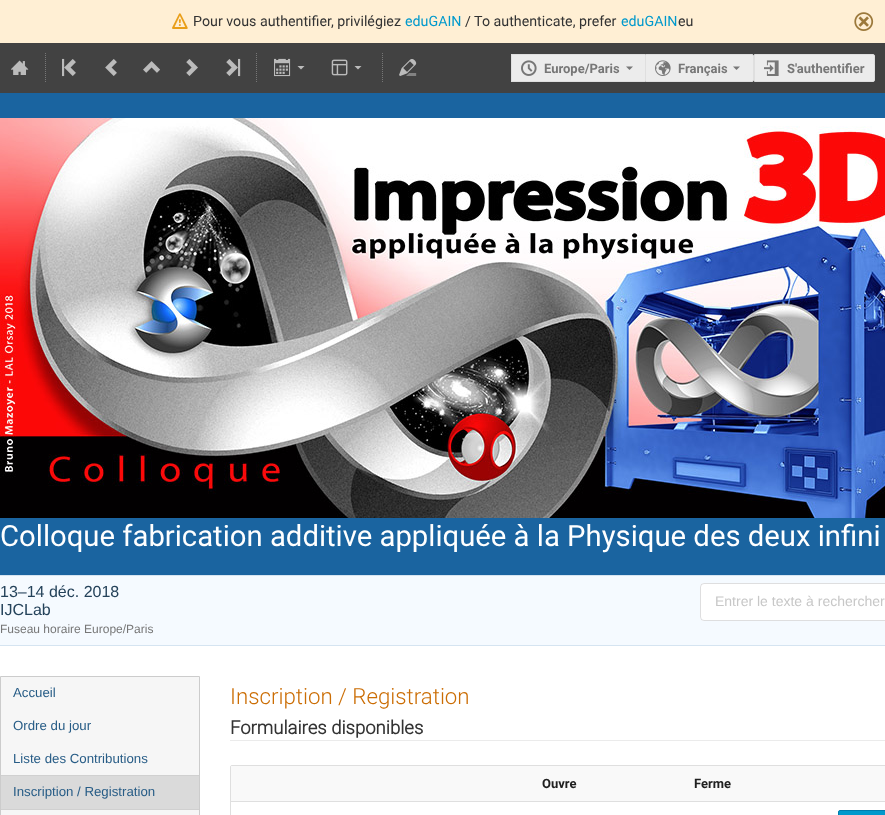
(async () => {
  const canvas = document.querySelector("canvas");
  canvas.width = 885;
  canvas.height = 815;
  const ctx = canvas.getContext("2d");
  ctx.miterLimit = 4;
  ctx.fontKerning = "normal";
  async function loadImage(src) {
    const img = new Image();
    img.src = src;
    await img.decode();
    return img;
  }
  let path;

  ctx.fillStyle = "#ffffff";
  ctx.fillRect(0, 0, 885, 815);
  ctx.fillStyle = "#ffefd4";
  ctx.fillRect(0, 0, 885, 43);
  ctx.drawImage(await loadImage("img/1.png"), 172, 13, 16, 16);
  ctx.drawImage(await loadImage("img/2.png"), 854, 12, 20, 19);
  ctx.fillStyle = "#424242";
  ctx.fillRect(0, 43, 885, 50);
  ctx.drawImage(await loadImage("img/3.png"), 11, 60, 18, 15);
  path = new Path2D("M45.5 53V83");
  ctx.strokeStyle = "#777777";
  ctx.setLineDash([1, 1]);
  ctx.stroke(path);
  ctx.drawImage(await loadImage("img/4.png"), 62, 58, 14, 19);
  ctx.drawImage(await loadImage("img/5.png"), 105, 59, 12, 17);
  ctx.drawImage(await loadImage("img/6.png"), 143, 61, 17, 12);
  ctx.drawImage(await loadImage("img/7.png"), 186, 59, 12, 17);
  ctx.drawImage(await loadImage("img/8.png"), 226, 58, 15, 19);
  path = new Path2D("M256.5 53V83");
  ctx.stroke(path);
  ctx.drawImage(await loadImage("img/9.png"), 274, 58, 17, 19);
  ctx.fillStyle = "#bbbbbb";
  path = new Path2D("M297.5 66L301 69.5L304.5 66Z");
  ctx.fill(path);
  ctx.drawImage(await loadImage("img/10.png"), 331, 59, 17, 17);
  path = new Path2D("M354.5 66L358 69.5L361.5 66Z");
  ctx.fill(path);
  path = new Path2D("M382.5 53V83");
  ctx.stroke(path);
  ctx.drawImage(await loadImage("img/11.png"), 399, 59, 18, 17);
  for (const [x, y, w, h, color] of [
    [512, 55, 133, 26, "#ececec"],
    [511, 54, 134, 1, "#dfdfdf"],
    [511, 81, 134, 1, "#dfdfdf"],
    [511, 54, 1, 28, "#dfdfdf"],
  ]) {
    ctx.fillStyle = color;
    ctx.fillRect(x, y, w, h);
  }
  ctx.drawImage(await loadImage("img/12.png"), 521, 60, 16, 16);
  ctx.fillStyle = "#777777";
  path = new Path2D("M626 66.5L629.5 70L633 66.5Z");
  ctx.fill(path);
  ctx.fillStyle = "#ececec";
  ctx.beginPath();
  ctx.roundRect(645.5, 54.5, 108, 27, [0, 1.5, 1.5, 0]);
  ctx.fill();
  ctx.strokeStyle = "#dfdfdf";
  ctx.setLineDash([]);
  ctx.stroke();
  ctx.drawImage(await loadImage("img/13.png"), 655, 60, 16, 16);
  ctx.fillStyle = "#777777";
  path = new Path2D("M733 66.5L736.5 70L740 66.5Z");
  ctx.fill(path);
  ctx.fillStyle = "#ececec";
  ctx.beginPath();
  ctx.roundRect(754.5, 54.5, 120, 27, [0, 1.5, 1.5, 0]);
  ctx.fill();
  ctx.stroke();
  ctx.drawImage(await loadImage("img/14.png"), 764, 60, 15, 16);
  ctx.fillStyle = "#1a64a0";
  ctx.fillRect(0, 93, 885, 482);
  ctx.drawImage(await loadImage("img/15.png"), 0, 118, 885, 400);
  for (const [x, y, w, h, color] of [
    [0, 576, 885, 69, "#f5faff"],
    [0, 575, 885, 1, "#d5e4f1"],
    [0, 645, 885, 1, "#d5e4f1"],
  ]) {
    ctx.fillStyle = color;
    ctx.fillRect(x, y, w, h);
  }
  ctx.fillStyle = "#ffffff";
  ctx.beginPath();
  ctx.roundRect(700, 583, 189, 38, 4);
  ctx.fill();
  ctx.beginPath();
  ctx.roundRect(700.5, 583.5, 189, 37, 3.5);
  ctx.strokeStyle = "rgba(34, 36, 38, 0.15)";
  ctx.stroke();
  ctx.fillStyle = "#f6f6f6";
  ctx.beginPath();
  ctx.rect(0.5, 676.5, 199, 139);
  ctx.fill();
  ctx.strokeStyle = "#cccccc";
  ctx.stroke();
  for (const [x, y, w, h, color] of [
    [1, 776, 198, 33, "#dadada"],
    [1, 775, 198, 1, "#d0d0d0"],
    [1, 809, 198, 1, "#d0d0d0"],
    [230, 740, 655, 1, "#ebebeb"],
  ]) {
    ctx.fillStyle = color;
    ctx.fillRect(x, y, w, h);
  }
  ctx.beginPath();
  ctx.roundRect(230.5, 765.5, 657, 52, 1.5);
  ctx.strokeStyle = "#dfdfdf";
  ctx.stroke();
  ctx.fillStyle = "#f9f9f9";
  ctx.fillRect(231, 766, 654, 35);
  ctx.fillStyle = "#dfdfdf";
  ctx.fillRect(231, 801, 654, 1);
  ctx.fillStyle = "#0099cc";
  ctx.beginPath();
  ctx.roundRect(838.5, 810.5, 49, 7, 1.5);
  ctx.fill();
  ctx.strokeStyle = "#007cac";
  ctx.stroke();
  ctx.font = "14.25px Roboto";
  ctx.fillStyle = "#333333";
  ctx.fillText("Pour vous authentifier, privilégiez", 193, 26);
  ctx.fillStyle = "#0099cc";
  ctx.fillText("eduGAIN", 405, 26);
  ctx.fillStyle = "#333333";
  ctx.fillText("/ To authenticate, prefer", 465, 26);
  ctx.fillStyle = "#0099cc";
  ctx.fillText("eduGAIN", 621, 26);
  ctx.fillStyle = "#333333";
  ctx.fillText("eu", 678, 26);
  ctx.font = "bold 13px Roboto";
  ctx.fillStyle = "#777777";
  for (const [text, x, y] of [
    ["Europe/Paris", 544, 73],
    ["Français", 678, 73],
    ["S'authentifier", 787, 73],
  ]) {
    ctx.fillText(text, x, y);
  }
  ctx.font = "29.3px Roboto";
  ctx.fillStyle = "#ffffff";
  ctx.fillText("Colloque fabrication additive appliquée à la Physique des deux infini", 0, 546);
  ctx.font = "16px Liberation Sans";
  ctx.fillStyle = "#24425a";
  ctx.fillText("13–14 déc. 2018", 0, 597);
  ctx.fillText("IJCLab", 0, 615);
  ctx.font = "12px Liberation Sans";
  ctx.fillStyle = "#777777";
  ctx.fillText("Fuseau horaire Europe/Paris", 0, 633);
  ctx.font = "14px 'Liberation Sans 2'";
  ctx.fillStyle = "#c7c7c7";
  ctx.fillText("Entrer le texte à rechercher", 715, 606);
  ctx.font = "13.25px 'Liberation Sans 2'";
  ctx.fillStyle = "#275c86";
  for (const [text, x, y] of [
    ["Accueil", 13, 697],
    ["Ordre du jour", 13, 730],
    ["Liste des Contributions", 13, 763],
    ["Inscription / Registration", 13, 796],
  ]) {
    ctx.fillText(text, x, y);
  }
  ctx.font = "300 22.25px Roboto";
  ctx.fillStyle = "#cb6d04";
  ctx.fillText("Inscription / Registration", 230, 704);
  ctx.font = "bold 18.5px 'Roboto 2'";
  ctx.fillStyle = "#333333";
  ctx.fillText("Formulaires disponibles", 230, 734);
  ctx.font = "bold 13px Roboto";
  ctx.fillStyle = "#202020";
  ctx.fillText("Ouvre", 542, 788);
  ctx.fillText("Ferme", 694, 788);
})();
